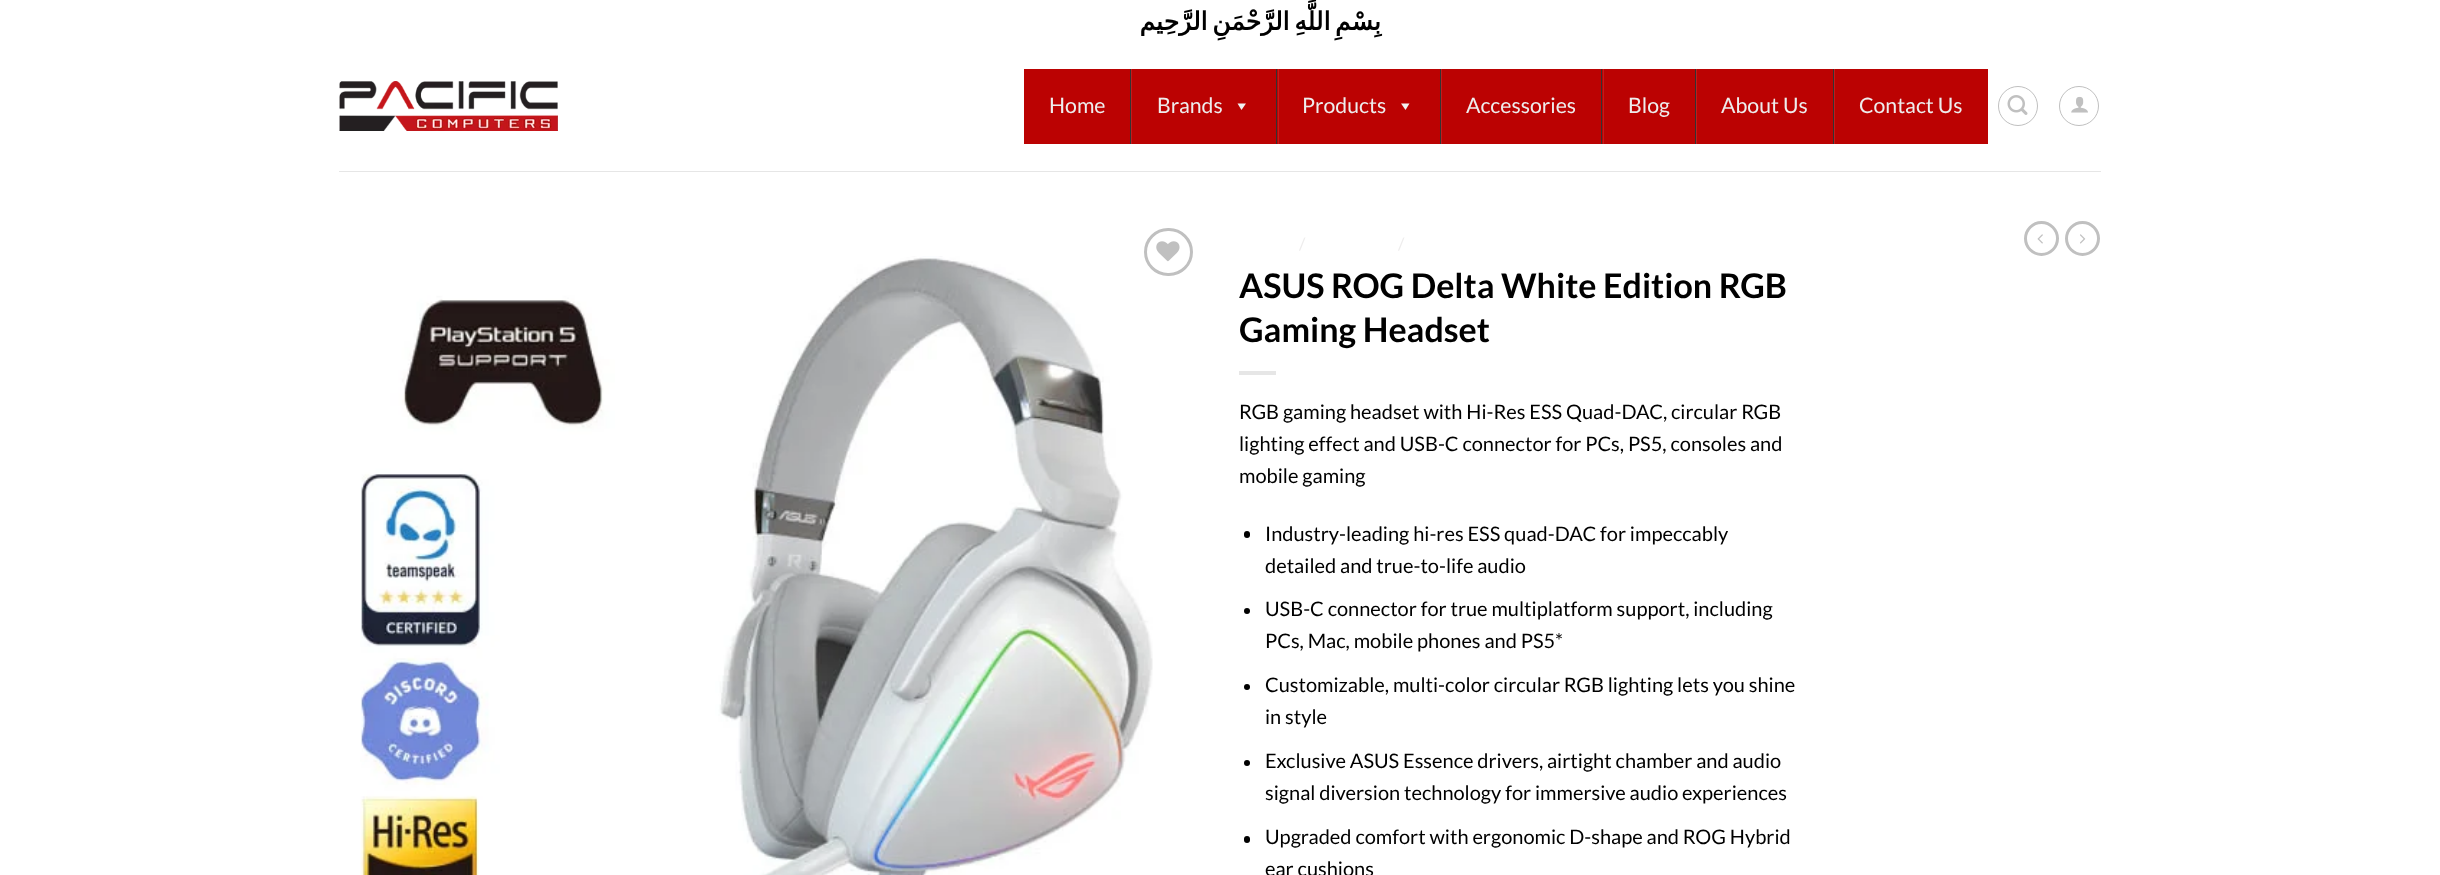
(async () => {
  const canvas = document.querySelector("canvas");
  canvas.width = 2440;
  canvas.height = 875;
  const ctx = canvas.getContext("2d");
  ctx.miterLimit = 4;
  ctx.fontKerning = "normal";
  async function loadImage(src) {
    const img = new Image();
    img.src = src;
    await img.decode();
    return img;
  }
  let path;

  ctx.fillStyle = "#ffffff";
  ctx.fillRect(0, 0, 2440, 875);
  ctx.drawImage(await loadImage("img/1.png"), 339, 81, 219, 50);
  for (const [x, y, w, h, color] of [
    [1024, 69, 964, 75, "#bb0202"],
    [1131, 69, 1, 75, "#c21b1b"],
    [1130, 69, 1, 75, "#333333"],
  ]) {
    ctx.fillStyle = color;
    ctx.fillRect(x, y, w, h);
  }
  ctx.fillStyle = "#f1f1f1";
  path = new Path2D("M1246 103.5L1241.5 110L1237.5 103.5Z");
  ctx.fill(path);
  ctx.fillStyle = "#c21b1b";
  ctx.fillRect(1278, 69, 1, 75);
  ctx.fillStyle = "#333333";
  ctx.fillRect(1276, 69, 1, 75);
  ctx.fillStyle = "#f1f1f1";
  path = new Path2D("M1409.5 103.5L1405.5 110L1401 103.5Z");
  ctx.fill(path);
  for (const [x, y, w, h, color] of [
    [1441, 69, 1, 75, "#c21b1b"],
    [1440, 69, 1, 75, "#333333"],
    [1603, 69, 1, 75, "#c21b1b"],
    [1601, 69, 1, 75, "#333333"],
    [1696, 69, 1, 75, "#c21b1b"],
    [1695, 69, 1, 75, "#333333"],
    [1834, 69, 1, 75, "#c21b1b"],
    [1833, 69, 1, 75, "#333333"],
  ]) {
    ctx.fillStyle = color;
    ctx.fillRect(x, y, w, h);
  }
  ctx.beginPath();
  ctx.arc(2018, 106, 19.5, 0, Math.PI * 2);
  ctx.strokeStyle = "#c0c0c0";
  ctx.stroke();
  ctx.drawImage(await loadImage("img/2.png"), 2007, 95, 21, 20);
  ctx.beginPath();
  ctx.arc(2079, 106, 19.5, 0, Math.PI * 2);
  ctx.stroke();
  ctx.drawImage(await loadImage("img/3.png"), 2071, 96, 17, 17);
  ctx.fillStyle = "#e6e6e6";
  ctx.fillRect(339, 171, 1762, 1);
  ctx.drawImage(await loadImage("img/4.png"), 360, 256, 793, 619);
  ctx.beginPath();
  ctx.roundRect(1145.5, 229.5, 46, 45, 22.5);
  ctx.lineWidth = 3;
  ctx.stroke();
  ctx.drawImage(await loadImage("img/5.png"), 1156, 241, 24, 21);
  ctx.fillRect(1239, 371, 37, 4);
  ctx.fillStyle = "#000000";
  ctx.beginPath();
  ctx.roundRect(1244, 531, 6, 7, 3);
  ctx.fill();
  ctx.beginPath();
  ctx.arc(1247, 611, 3, 0, Math.PI * 2);
  ctx.fill();
  ctx.beginPath();
  ctx.arc(1247, 687, 3, 0, Math.PI * 2);
  ctx.fill();
  ctx.beginPath();
  ctx.arc(1247, 763, 3, 0, Math.PI * 2);
  ctx.fill();
  ctx.beginPath();
  ctx.roundRect(1244, 836, 6, 7, 3);
  ctx.fill();
  ctx.beginPath();
  ctx.arc(2041.5, 238.5, 16, 0, Math.PI * 2);
  ctx.stroke();
  ctx.drawImage(await loadImage("img/6.png"), 2037, 234, 6, 10);
  ctx.beginPath();
  ctx.arc(2082.5, 238.5, 16, 0, Math.PI * 2);
  ctx.stroke();
  ctx.drawImage(await loadImage("img/7.png"), 2080, 234, 6, 10);
  ctx.letterSpacing = "1.25px";
  ctx.wordSpacing = "-4.5px";
  ctx.direction = "rtl";
  ctx.font = "bold 25px DejaVu Sans";
  ctx.fillText("بِسْمِ اللَّهِ الرَّحْمَنِ الرَّحِيم", 1381, 30);
  ctx.letterSpacing = "0px";
  ctx.wordSpacing = "0px";
  ctx.direction = "ltr";
  ctx.font = "21.25px Lato";
  ctx.fillStyle = "#eeeded";
  for (const [text, x, y] of [
    ["Home", 1049, 113],
    ["Brands", 1157, 113],
    ["Products", 1302, 113],
    ["Accessories", 1466, 113],
    ["Blog", 1628, 113],
    ["About Us", 1721, 113],
    ["Contact Us", 1859, 113],
  ]) {
    ctx.fillText(text, x, y);
  }
  ctx.font = "17px Lato";
  ctx.fillText("/", 1299, 250);
  ctx.fillText("/", 1398, 250);
  ctx.font = "bold 34px Lato";
  ctx.fillStyle = "#000000";
  ctx.fillText("ASUS ROG Delta White Edition RGB", 1239, 298);
  ctx.fillText("Gaming Headset", 1239, 342);
  ctx.font = "20px Lato";
  for (const [text, x, y] of [
    ["RGB gaming headset with Hi-Res ESS Quad-DAC, circular RGB", 1239, 419],
    ["lighting effect and USB-C connector for PCs, PS5, consoles and", 1239, 451],
    ["mobile gaming", 1239, 483],
    ["Industry-leading hi-res ESS quad-DAC for impeccably", 1265, 541],
    ["detailed and true-to-life audio", 1265, 573],
    ["USB-C connector for true multiplatform support, including", 1265, 616],
    ["PCs, Mac, mobile phones and PS5*", 1265, 648],
    ["Customizable, multi-color circular RGB lighting lets you shine", 1265, 692],
    ["in style", 1265, 724],
    ["Exclusive ASUS Essence drivers, airtight chamber and audio", 1265, 768],
    ["signal diversion technology for immersive audio experiences", 1265, 800],
    ["Upgraded comfort with ergonomic D-shape and ROG Hybrid", 1265, 844],
    ["ear cushions", 1265, 876],
  ]) {
    ctx.fillText(text, x, y);
  }
})();
